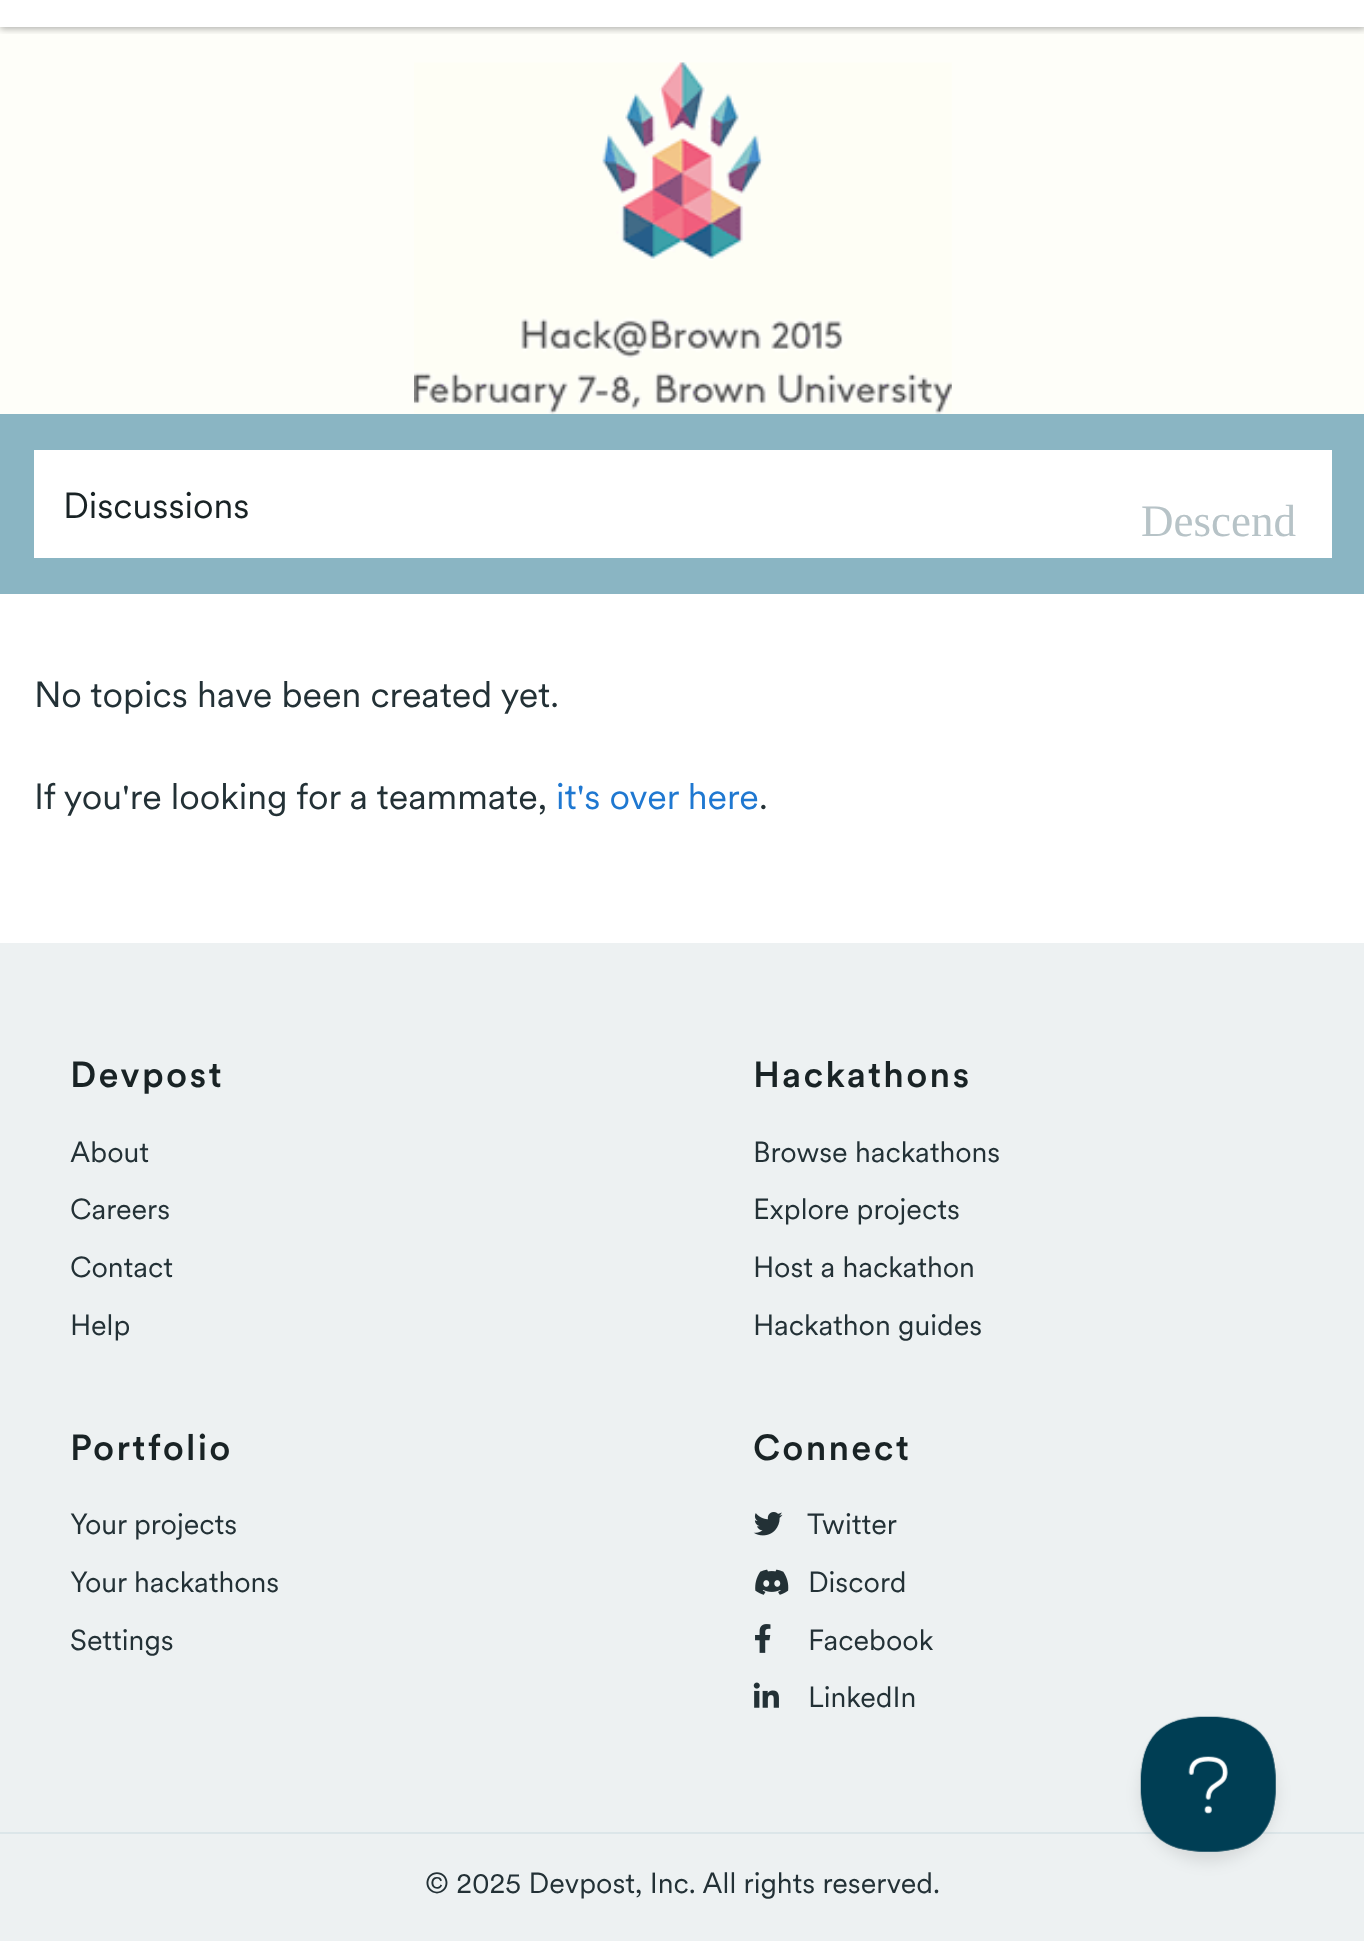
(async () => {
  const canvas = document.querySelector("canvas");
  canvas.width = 1364;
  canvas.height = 1941;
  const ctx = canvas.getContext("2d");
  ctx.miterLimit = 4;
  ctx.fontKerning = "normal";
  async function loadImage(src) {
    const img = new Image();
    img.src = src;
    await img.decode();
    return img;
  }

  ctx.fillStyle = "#ffffff";
  ctx.fillRect(0, 0, 1364, 1941);
  ctx.fillStyle = "#fefef9";
  ctx.fillRect(0, 27, 1364, 387);
  ctx.save();
  ctx.beginPath();
  ctx.rect(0, 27, 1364, 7);
  ctx.clip();
  ctx.fillStyle = "rgba(0, 0, 0, 0.3)";
  ctx.filter = "blur(3.5px)";
  ctx.beginPath();
  ctx.rect(0, -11, 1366, 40);
  ctx.fill();
  ctx.filter = "none";
  ctx.restore();
  ctx.drawImage(await loadImage("img/1.png"), 414, 62, 538, 352);
  for (const [x, y, w, h, color] of [
    [0, 414, 1364, 180, "#8ab5c3"],
    [34, 450, 1298, 108, "#ffffff"],
    [0, 943, 1364, 998, "#edf1f2"],
  ]) {
    ctx.fillStyle = color;
    ctx.fillRect(x, y, w, h);
  }
  ctx.drawImage(await loadImage("img/2.png"), 753, 1512, 30, 24);
  ctx.drawImage(await loadImage("img/3.png"), 755, 1569, 34, 26);
  ctx.drawImage(await loadImage("img/4.png"), 755, 1624, 16, 29);
  ctx.drawImage(await loadImage("img/5.png"), 753, 1682, 26, 26);
  ctx.fillStyle = "#dce6e9";
  ctx.fillRect(0, 1832, 1364, 2);
  ctx.fillStyle = "rgba(0, 0, 0, 0.1)";
  ctx.filter = "blur(8px)";
  ctx.beginPath();
  ctx.roundRect(1141, 1726, 135, 135, 67.5);
  ctx.fill();
  ctx.filter = "none";
  ctx.drawImage(await loadImage("img/6.png"), 1140, 1716, 136, 136);
  ctx.font = "36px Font";
  ctx.fillStyle = "#192325";
  ctx.fillText("Discussions", 63, 518);
  ctx.font = "45px Liberation Serif";
  ctx.fillStyle = "#b7c3c7";
  ctx.fillText("Descend", 1141, 536);
  ctx.font = "36px Font";
  ctx.fillStyle = "#233136";
  ctx.fillText("No topics have been created yet.", 34, 707);
  ctx.fillText("If you're looking for a teammate,", 34, 809);
  ctx.fillStyle = "#1f78d1";
  ctx.fillText("it's over here", 556, 809);
  ctx.fillStyle = "#233136";
  ctx.fillText(".", 759, 809);
  ctx.letterSpacing = "2.25px";
  ctx.font = "500 36px Font";
  ctx.fillStyle = "#192325";
  ctx.fillText("Devpost", 70, 1087);
  ctx.letterSpacing = "0px";
  ctx.font = "28.75px Font";
  ctx.fillStyle = "#233136";
  for (const [text, x, y] of [
    ["About", 70, 1162],
    ["Careers", 70, 1219],
    ["Contact", 70, 1277],
    ["Help", 70, 1335],
  ]) {
    ctx.fillText(text, x, y);
  }
  ctx.letterSpacing = "2.25px";
  ctx.font = "500 36px Font";
  ctx.fillStyle = "#192325";
  ctx.fillText("Hackathons", 753, 1087);
  ctx.letterSpacing = "0px";
  ctx.font = "28.75px Font";
  ctx.fillStyle = "#233136";
  for (const [text, x, y] of [
    ["Browse hackathons", 753, 1162],
    ["Explore projects", 753, 1219],
    ["Host a hackathon", 753, 1277],
    ["Hackathon guides", 753, 1335],
  ]) {
    ctx.fillText(text, x, y);
  }
  ctx.letterSpacing = "2.25px";
  ctx.font = "500 36px Font";
  ctx.fillStyle = "#192325";
  ctx.fillText("Portfolio", 70, 1460);
  ctx.letterSpacing = "0px";
  ctx.font = "28.75px Font";
  ctx.fillStyle = "#233136";
  for (const [text, x, y] of [
    ["Your projects", 70, 1534],
    ["Your hackathons", 70, 1592],
    ["Settings", 70, 1650],
  ]) {
    ctx.fillText(text, x, y);
  }
  ctx.letterSpacing = "2.25px";
  ctx.font = "500 36px Font";
  ctx.fillStyle = "#192325";
  ctx.fillText("Connect", 753, 1460);
  ctx.letterSpacing = "0px";
  ctx.font = "28.75px Font";
  ctx.fillStyle = "#233136";
  for (const [text, x, y] of [
    ["Twitter", 807, 1534],
    ["Discord", 808, 1592],
    ["Facebook", 808, 1650],
    ["LinkedIn", 808, 1707],
    ["© 2025 Devpost, Inc. All rights reserved.", 425, 1893],
  ]) {
    ctx.fillText(text, x, y);
  }
})();
